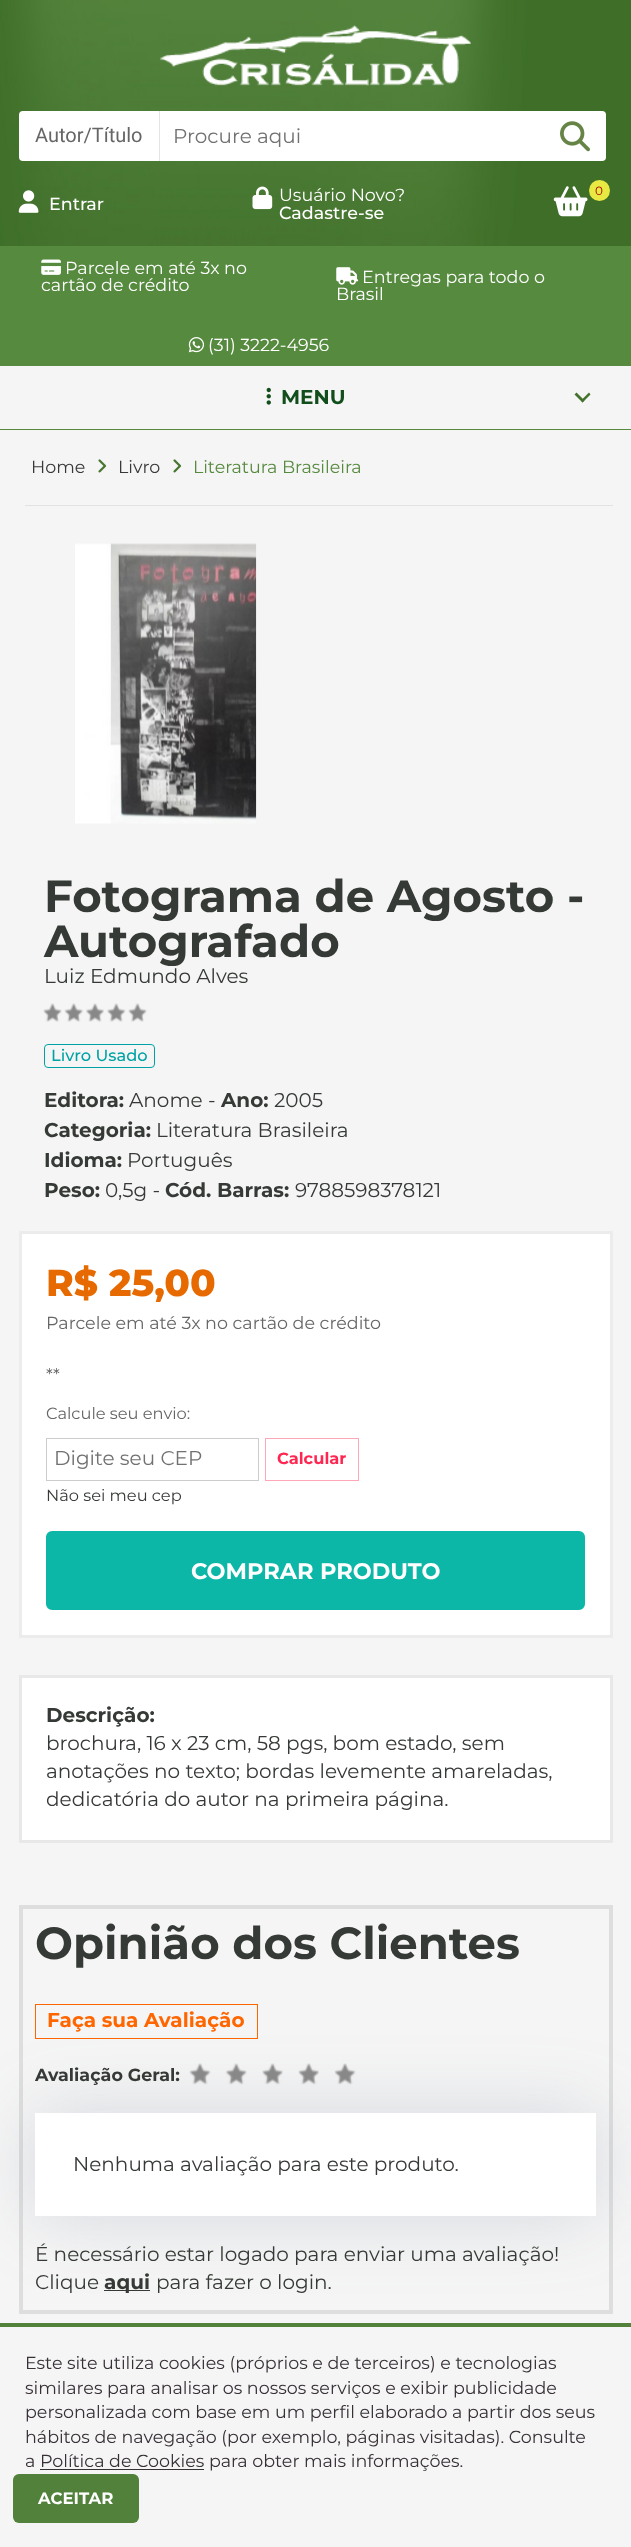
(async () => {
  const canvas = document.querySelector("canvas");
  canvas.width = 631;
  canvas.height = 2547;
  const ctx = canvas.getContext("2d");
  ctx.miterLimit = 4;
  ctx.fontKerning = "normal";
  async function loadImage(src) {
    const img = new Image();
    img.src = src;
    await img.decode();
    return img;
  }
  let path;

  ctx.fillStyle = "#f5f5f5";
  ctx.fillRect(0, 0, 631, 2547);
  ctx.drawImage(await loadImage("img/1.png"), 0, 0, 631, 246);
  ctx.drawImage(await loadImage("img/2.png"), 160, 25, 311, 61);
  ctx.fillStyle = "#ffffff";
  ctx.beginPath();
  ctx.roundRect(19, 111, 141, 50, [4, 0, 0, 4]);
  ctx.fill();
  ctx.fillStyle = "#e5e5e5";
  ctx.fillRect(159, 111, 1, 50);
  ctx.fillStyle = "#ffffff";
  ctx.beginPath();
  ctx.roundRect(160, 111, 446, 50, [0, 4, 4, 0]);
  ctx.fill();
  ctx.drawImage(await loadImage("img/3.png"), 560, 121, 30, 31);
  ctx.drawImage(await loadImage("img/4.png"), 18, 190, 21, 23);
  ctx.drawImage(await loadImage("img/5.png"), 252, 186, 21, 24);
  ctx.drawImage(await loadImage("img/6.png"), 553, 186, 35, 31);
  ctx.fillStyle = "#e8e942";
  ctx.beginPath();
  ctx.arc(599.5, 190.5, 10.5, 0, Math.PI * 2);
  ctx.fill();
  ctx.fillStyle = "#568a3f";
  ctx.fillRect(0, 246, 631, 120);
  ctx.drawImage(await loadImage("img/7.png"), 41, 259, 20, 16);
  ctx.drawImage(await loadImage("img/8.png"), 336, 267, 23, 18);
  ctx.drawImage(await loadImage("img/9.png"), 188, 337, 17, 16);
  ctx.fillRect(0, 429, 631, 1);
  ctx.drawImage(await loadImage("img/10.png"), 266, 387, 5, 18);
  ctx.fillStyle = "#43722d";
  path = new Path2D("M576.5 392.5L584.5 400.5L582.5 402.5L574.5 394.5Z");
  ctx.fill(path);
  path = new Path2D("M581 400.5L589 392.5L590.5 394.5L582.5 402.5Z");
  ctx.fill(path);
  ctx.fillStyle = "#e2e2e2";
  ctx.fillRect(25, 505, 588, 1);
  ctx.drawImage(await loadImage("img/11.png"), 98, 459, 9, 14);
  ctx.drawImage(await loadImage("img/11.png"), 173, 459, 9, 14);
  ctx.drawImage(await loadImage("img/12.png"), 75, 543, 182, 281);
  ctx.drawImage(await loadImage("img/13.png"), 43, 1003, 19, 19);
  ctx.drawImage(await loadImage("img/14.png"), 64, 1003, 19, 19);
  ctx.drawImage(await loadImage("img/15.png"), 86, 1003, 18, 19);
  ctx.drawImage(await loadImage("img/16.png"), 107, 1003, 19, 19);
  ctx.drawImage(await loadImage("img/13.png"), 128, 1003, 19, 19);
  ctx.beginPath();
  ctx.roundRect(44.5, 1044.5, 110, 23, 3.5);
  ctx.strokeStyle = "#00a3a5";
  ctx.stroke();
  ctx.fillStyle = "#ffffff";
  ctx.beginPath();
  ctx.rect(20.5, 1232.5, 591, 404);
  ctx.fill();
  ctx.strokeStyle = "#ececec";
  ctx.lineWidth = 3;
  ctx.stroke();
  ctx.strokeStyle = "#cccccc";
  ctx.lineWidth = 1;
  ctx.strokeRect(46.5, 1438.5, 212, 42);
  ctx.strokeStyle = "#ffa6b7";
  ctx.strokeRect(265.5, 1438.5, 93, 42);
  ctx.fillStyle = "#0db7a7";
  ctx.beginPath();
  ctx.roundRect(47.5, 1532.5, 536, 76, 4.5);
  ctx.fill();
  ctx.strokeStyle = "#0db7a7";
  ctx.lineWidth = 3;
  ctx.stroke();
  ctx.fillStyle = "#ffffff";
  ctx.beginPath();
  ctx.rect(20.5, 1676.5, 591, 165);
  ctx.fill();
  ctx.strokeStyle = "#e8e8e8";
  ctx.stroke();
  ctx.strokeStyle = "#dedede";
  ctx.lineWidth = 4;
  ctx.strokeRect(21, 1907, 590, 405);
  ctx.fillStyle = "rgba(88, 104, 135, 0.2)";
  ctx.filter = "blur(37.5px)";
  ctx.beginPath();
  ctx.rect(35, 2113, 561, 103);
  ctx.fill();
  ctx.filter = "none";
  ctx.strokeStyle = "#ff6600";
  ctx.lineWidth = 1;
  ctx.strokeRect(35.5, 2004.5, 222, 34);
  ctx.drawImage(await loadImage("img/17.png"), 189, 2063, 22, 22);
  ctx.drawImage(await loadImage("img/18.png"), 225, 2063, 22, 22);
  ctx.drawImage(await loadImage("img/19.png"), 262, 2063, 21, 22);
  ctx.drawImage(await loadImage("img/20.png"), 298, 2063, 21, 22);
  ctx.drawImage(await loadImage("img/21.png"), 334, 2063, 22, 22);
  for (const [x, y, w, h, color] of [
    [35, 2113, 561, 103, "#ffffff"],
    [104, 2290, 46, 1, "#363a36"],
    [0, 2323, 631, 4, "#52813b"],
    [40, 2469, 164, 1, "#373037"],
  ]) {
    ctx.fillStyle = color;
    ctx.fillRect(x, y, w, h);
  }
  ctx.fillStyle = "#52813b";
  ctx.beginPath();
  ctx.roundRect(13, 2474, 126, 49, 6);
  ctx.fill();
  ctx.font = "20px Roboto";
  ctx.fillStyle = "#666666";
  ctx.fillText("Autor/Título", 35, 142);
  ctx.font = "20px Montserrat";
  ctx.fillStyle = "#717171";
  ctx.fillText("Procure aqui", 173, 143);
  ctx.font = "500 17.5px Montserrat";
  ctx.fillStyle = "#ffffff";
  ctx.fillText("Entrar", 49, 210);
  ctx.font = "17.5px Montserrat";
  ctx.fillText("Usuário Novo?", 279, 201);
  ctx.font = "500 17.5px Montserrat";
  ctx.fillText("Cadastre-se", 279, 219);
  ctx.font = "12px Montserrat";
  ctx.fillStyle = "#a60000";
  ctx.fillText("0", 595, 195);
  ctx.font = "17.5px Montserrat";
  ctx.fillStyle = "#ffffff";
  for (const [text, x, y] of [
    ["Parcele em até 3x no", 65, 274],
    ["cartão de crédito", 41, 291],
    ["Entregas para todo o", 362, 283],
    ["Brasil", 336, 300],
    ["(31) 3222-4956", 208, 351],
  ]) {
    ctx.fillText(text, x, y);
  }
  ctx.font = "bold 20px Montserrat";
  ctx.fillStyle = "#124e1c";
  ctx.fillText("MENU", 281, 404);
  ctx.font = "17.5px Montserrat";
  ctx.fillStyle = "#363a36";
  ctx.fillText("Home", 31, 473);
  ctx.fillText("Livro", 118, 473);
  ctx.fillStyle = "#568a3f";
  ctx.fillText("Literatura Brasileira", 193, 473);
  ctx.font = "bold 45px Montserrat";
  ctx.fillStyle = "#363a36";
  ctx.fillText("Fotograma de Agosto -", 44, 912);
  ctx.fillText("Autografado", 44, 957);
  ctx.font = "20px Montserrat";
  ctx.fillText("Luiz Edmundo Alves", 44, 983);
  ctx.font = "500 16.25px Montserrat";
  ctx.fillStyle = "#00a3a5";
  ctx.fillText("Livro Usado", 51, 1061);
  ctx.font = "bold 20px Montserrat";
  ctx.fillStyle = "#363a36";
  ctx.fillText("Editora:", 44, 1107);
  ctx.font = "20px Montserrat";
  ctx.fillText("Anome -", 129, 1107);
  ctx.font = "bold 20px Montserrat";
  ctx.fillText("Ano:", 221, 1107);
  ctx.font = "20px Montserrat";
  ctx.fillText("2005", 274, 1107);
  ctx.font = "bold 20px Montserrat";
  ctx.fillText("Categoria:", 44, 1137);
  ctx.font = "20px Montserrat";
  ctx.fillText("Literatura Brasileira", 156, 1137);
  ctx.font = "bold 20px Montserrat";
  ctx.fillText("Idioma:", 44, 1167);
  ctx.font = "20px Montserrat";
  ctx.fillText("Português", 127, 1167);
  ctx.font = "bold 20px Montserrat";
  ctx.fillText("Peso:", 44, 1197);
  ctx.font = "20px Montserrat";
  ctx.fillText("0,5g -", 105, 1197);
  ctx.font = "bold 20px Montserrat";
  ctx.fillText("Cód. Barras:", 165, 1197);
  ctx.font = "20px Montserrat";
  ctx.fillText("9788598378121", 295, 1197);
  ctx.font = "800 37.5px Montserrat";
  ctx.fillStyle = "#e66a00";
  ctx.fillText("R$ 25,00", 46, 1296);
  ctx.font = "17.5px Montserrat";
  ctx.fillStyle = "#666666";
  ctx.fillText("Parcele em até 3x no cartão de crédito", 46, 1329);
  ctx.fillText("**", 46, 1381);
  ctx.font = "16.25px Montserrat";
  ctx.fillText("Calcule seu envio:", 46, 1419);
  ctx.font = "20px Montserrat";
  ctx.fillStyle = "#717171";
  ctx.fillText("Digite seu CEP", 54, 1465);
  ctx.font = "bold 16.25px Montserrat";
  ctx.fillStyle = "#ff2752";
  ctx.fillText("Calcular", 277, 1464);
  ctx.font = "16.25px Montserrat";
  ctx.fillStyle = "#363a36";
  ctx.fillText("Não sei meu cep", 46, 1501);
  ctx.font = "bold 22.5px Montserrat";
  ctx.fillStyle = "#ffffff";
  ctx.fillText("COMPRAR PRODUTO", 191, 1579);
  ctx.font = "bold 20px Montserrat";
  ctx.fillStyle = "#363a36";
  ctx.fillText("Descrição:", 46, 1722);
  ctx.font = "20px Montserrat";
  for (const [text, x, y] of [
    ["brochura, 16 x 23 cm, 58 pgs, bom estado, sem", 46, 1750],
    ["anotações no texto; bordas levemente amareladas,", 46, 1778],
    ["dedicatória do autor na primeira página.", 46, 1806],
  ]) {
    ctx.fillText(text, x, y);
  }
  ctx.font = "bold 45px Montserrat";
  ctx.fillText("Opinião dos Clientes", 35, 1959);
  ctx.font = "bold 20px Montserrat";
  ctx.fillStyle = "#ff6600";
  ctx.fillText("Faça sua Avaliação", 47, 2027);
  ctx.font = "bold 17.5px Montserrat";
  ctx.fillStyle = "#363a36";
  ctx.fillText("Avaliação Geral:", 35, 2081);
  ctx.font = "20px Montserrat";
  for (const [text, x, y] of [
    ["Nenhuma avaliação para este produto.", 73, 2171],
    ["É necessário estar logado para enviar uma avaliação!", 35, 2261],
    ["Clique", 35, 2289],
  ]) {
    ctx.fillText(text, x, y);
  }
  ctx.font = "bold 20px Montserrat";
  ctx.fillText("aqui", 104, 2289);
  ctx.font = "20px Montserrat";
  ctx.fillText("para fazer o login.", 156, 2289);
  ctx.font = "17.5px Montserrat";
  ctx.fillStyle = "#373037";
  for (const [text, x, y] of [
    ["Este site utiliza cookies (próprios e de terceiros) e tecnologias", 25, 2369],
    ["similares para analisar os nossos serviços e exibir publicidade", 25, 2394],
    ["personalizada com base em um perfil elaborado a partir dos seus", 25, 2418],
    ["hábitos de navegação (por exemplo, páginas visitadas). Consulte", 25, 2443],
    ["a Política de Cookies para obter mais informações.", 25, 2467],
  ]) {
    ctx.fillText(text, x, y);
  }
  ctx.font = "bold 16.5px Montserrat";
  ctx.fillStyle = "#ffffff";
  ctx.fillText("ACEITAR", 38, 2504);
})();
